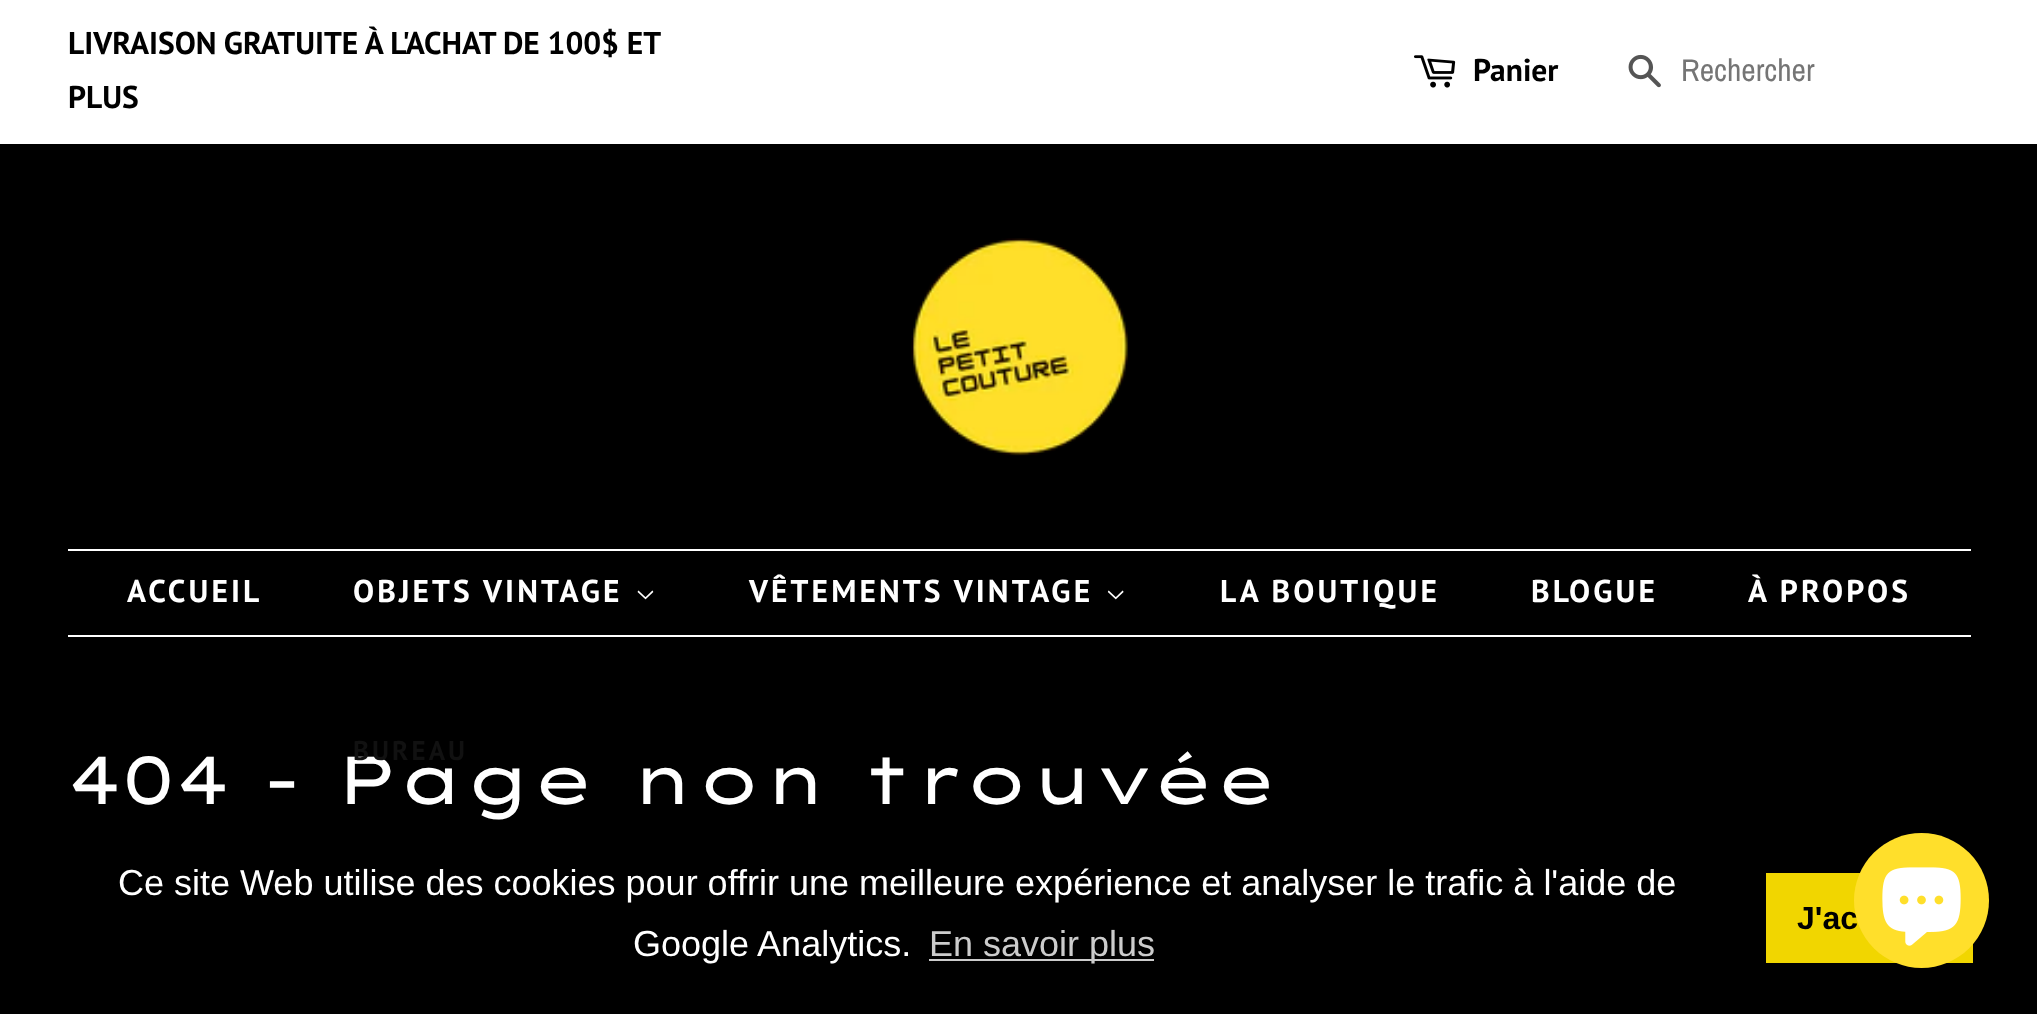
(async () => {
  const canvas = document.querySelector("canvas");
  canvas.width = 2037;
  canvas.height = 1014;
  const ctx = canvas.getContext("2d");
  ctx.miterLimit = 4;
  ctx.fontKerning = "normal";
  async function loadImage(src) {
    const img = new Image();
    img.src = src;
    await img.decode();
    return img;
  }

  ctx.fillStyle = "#000000";
  ctx.fillRect(0, 0, 2037, 1014);
  ctx.fillStyle = "#ffffff";
  ctx.fillRect(0, 0, 2037, 144);
  ctx.drawImage(await loadImage("img/1.png"), 1414, 55, 42, 33);
  ctx.drawImage(await loadImage("img/2.png"), 1628, 54, 33, 34);
  ctx.drawImage(await loadImage("img/3.png"), 911, 238, 218, 218);
  ctx.fillRect(68, 549, 1903, 2);
  ctx.fillRect(68, 635, 1903, 2);
  ctx.drawImage(await loadImage("img/4.png"), 637, 590, 17, 10);
  ctx.drawImage(await loadImage("img/5.png"), 1107, 590, 17, 10);
  ctx.fillStyle = "#cccccc";
  ctx.fillRect(929, 959, 225, 2);
  ctx.fillStyle = "#f1d600";
  ctx.fillRect(1766, 873, 207, 90);
  ctx.wordSpacing = "-0.25px";
  ctx.font = "bold 31.5px PT Sans";
  ctx.fillStyle = "#000000";
  ctx.fillText("LIVRAISON GRATUITE À L'ACHAT DE 100$ ET", 68, 54);
  ctx.wordSpacing = "0px";
  ctx.fillText("PLUS", 68, 108);
  ctx.fillText("Panier", 1473, 81);
  ctx.font = "31.5px Archivo Narrow";
  ctx.fillStyle = "#757575";
  ctx.fillText("Rechercher", 1681, 81);
  ctx.letterSpacing = "3.1px";
  ctx.font = "bold 31.5px PT Sans";
  ctx.fillStyle = "#ffffff";
  for (const [text, x, y] of [
    ["ACCUEIL", 127, 602],
    ["OBJETS VINTAGE", 353, 602],
    ["VÊTEMENTS VINTAGE", 749, 602],
    ["LA BOUTIQUE", 1220, 602],
    ["BLOGUE", 1531, 602],
    ["À PROPOS", 1748, 602],
  ]) {
    ctx.fillText(text, x, y);
  }
  ctx.letterSpacing = "0px";
  ctx.font = "67.5px Lexend Zetta";
  ctx.fillText("404 - Page non trouvée", 68, 804);
  ctx.letterSpacing = "3.1px";
  ctx.font = "bold 27px PT Sans";
  ctx.fillStyle = "#111111";
  ctx.fillText("BUREAU", 353, 760);
  ctx.letterSpacing = "0px";
  ctx.font = "36px Liberation Sans";
  ctx.fillStyle = "#ffffff";
  ctx.fillText("Ce site Web utilise des cookies pour offrir une meilleure expérience et analyser le trafic à l'aide de", 118, 895);
  ctx.fillText("Google Analytics.", 633, 956);
  ctx.fillStyle = "#cccccc";
  ctx.fillText("En savoir plus", 929, 956);
  ctx.font = "bold 32px Liberation Sans";
  ctx.fillStyle = "#000000";
  ctx.fillText("J'ac", 1797, 929);
  ctx.fillStyle = "#ffdf2b";
  ctx.beginPath();
  ctx.arc(1921.5, 900.5, 67.5, 0, Math.PI * 2);
  ctx.fill();
  ctx.drawImage(await loadImage("img/6.png"), 1882, 867, 79, 79);
})();
